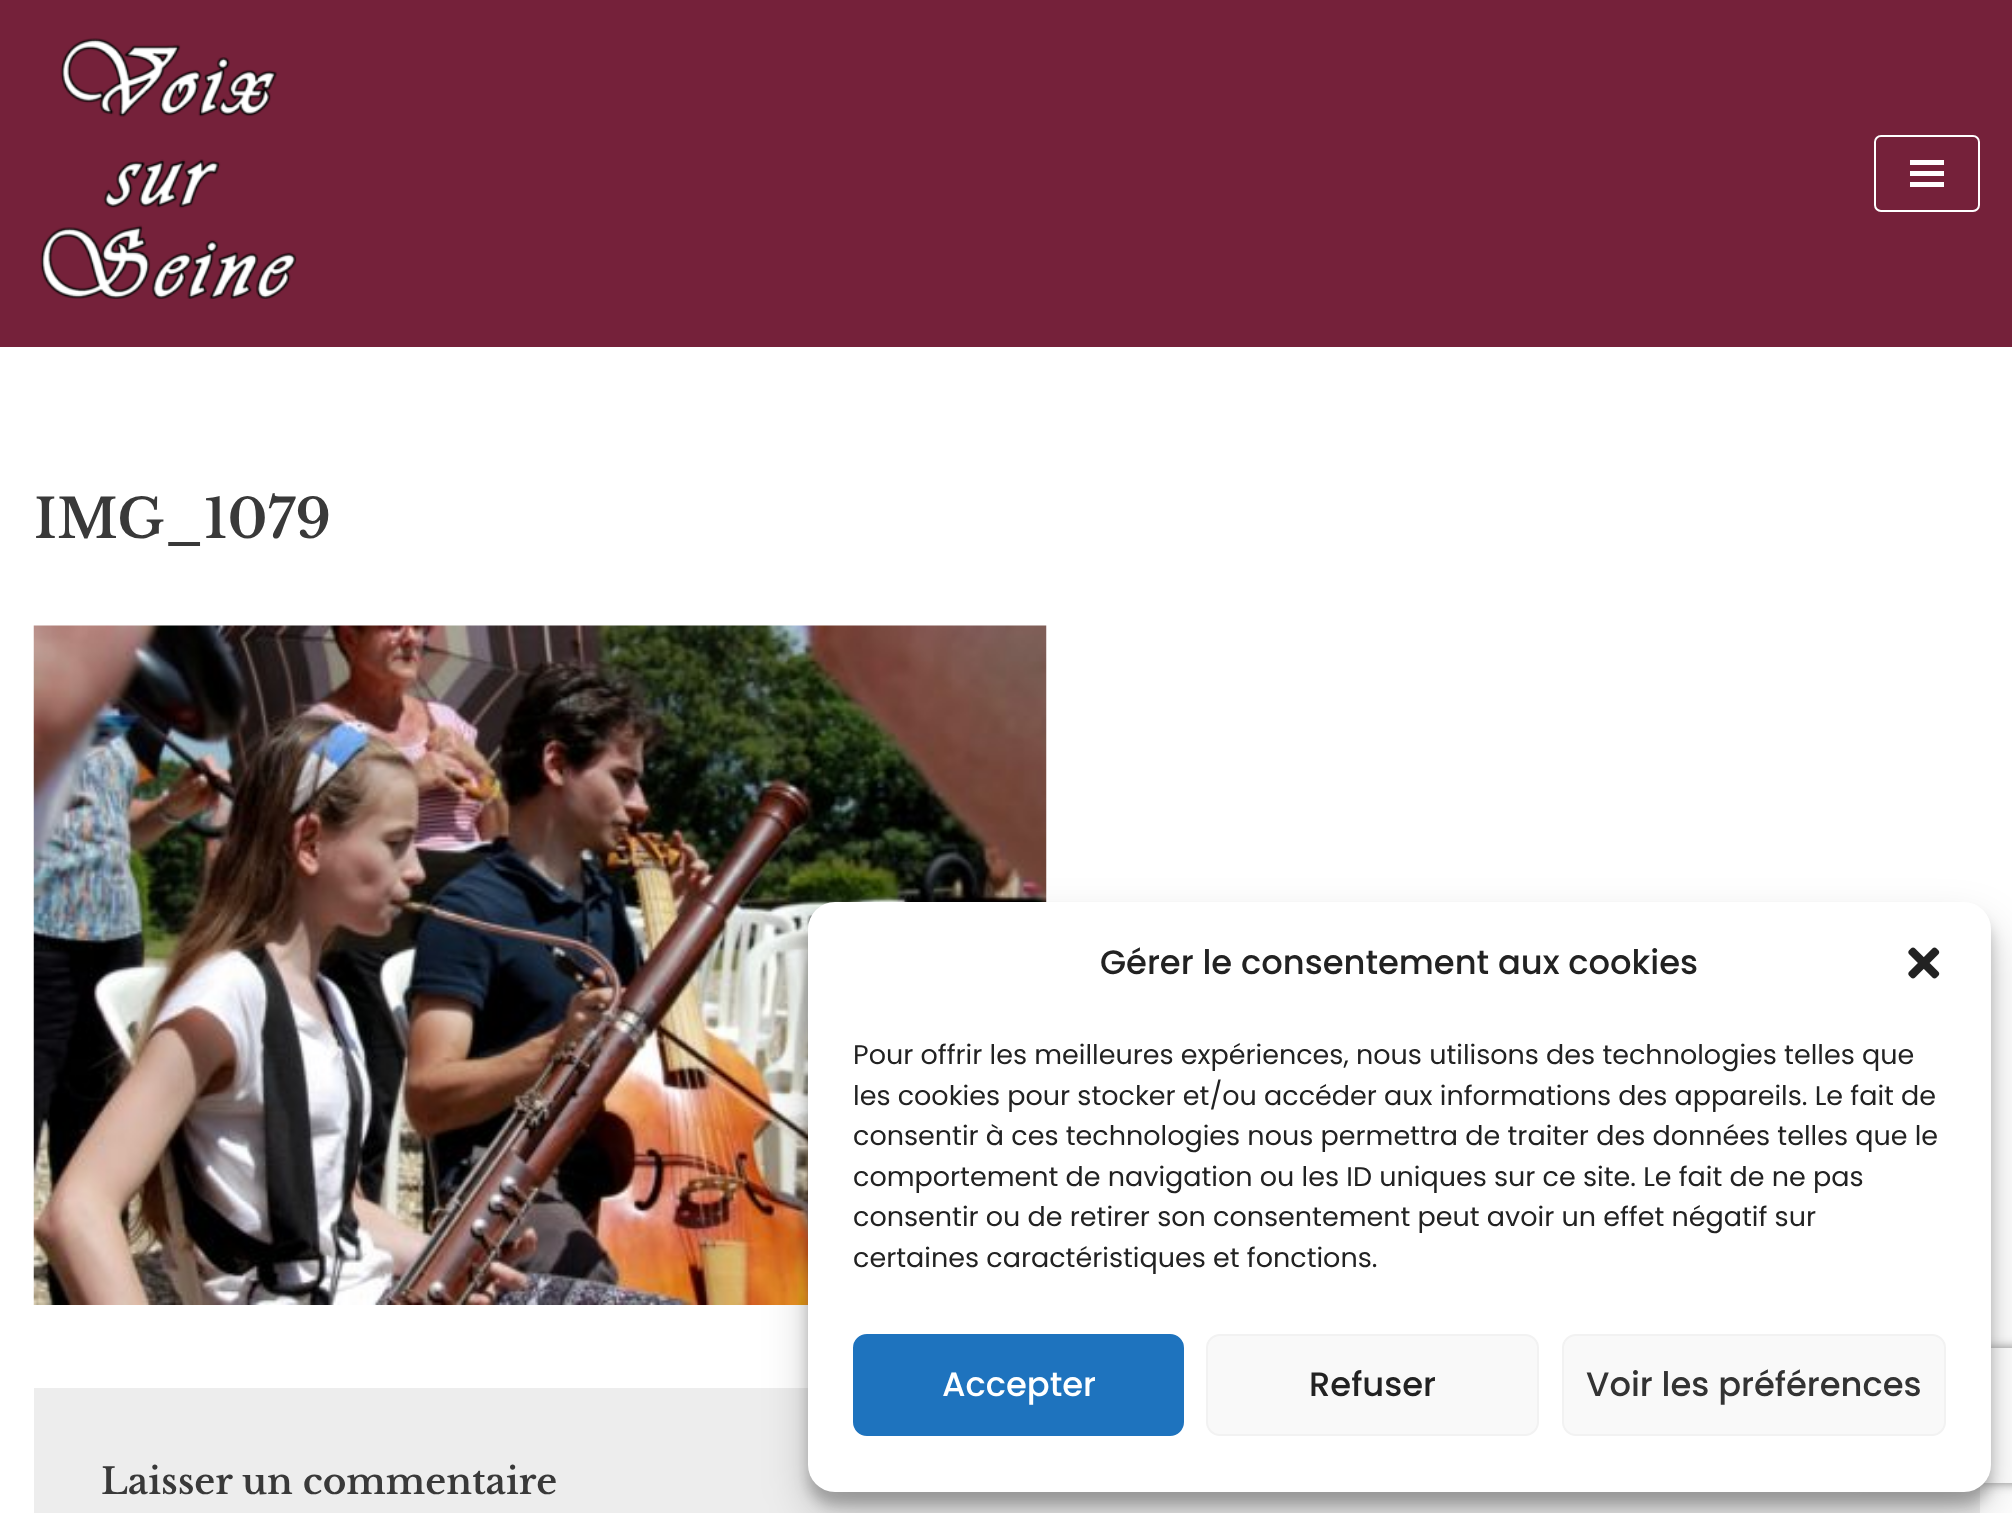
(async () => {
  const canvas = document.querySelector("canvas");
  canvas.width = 2012;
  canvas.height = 1513;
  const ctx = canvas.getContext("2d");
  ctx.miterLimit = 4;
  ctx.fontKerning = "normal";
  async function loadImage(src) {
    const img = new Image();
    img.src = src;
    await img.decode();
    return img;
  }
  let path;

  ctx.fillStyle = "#ffffff";
  ctx.fillRect(0, 0, 2012, 1513);
  ctx.fillStyle = "#75213a";
  ctx.fillRect(0, 0, 2012, 347);
  ctx.drawImage(await loadImage("img/1.png"), 40, 38, 257, 261);
  ctx.beginPath();
  ctx.roundRect(1875, 136, 104, 75, 6);
  ctx.strokeStyle = "#ffffff";
  ctx.lineWidth = 2;
  ctx.stroke();
  for (const [x, y, w, h, color] of [
    [1910, 160, 34, 5, "#ffffff"],
    [1910, 171, 34, 5, "#ffffff"],
    [1910, 182, 34, 5, "#ffffff"],
  ]) {
    ctx.fillStyle = color;
    ctx.fillRect(x, y, w, h);
  }
  ctx.drawImage(await loadImage("img/2.png"), 33, 625, 1014, 680);
  ctx.fillStyle = "#ededed";
  ctx.fillRect(34, 1388, 1946, 125);
  ctx.fillStyle = "rgba(0, 0, 0, 0.23)";
  ctx.filter = "blur(7px)";
  ctx.beginPath();
  ctx.roundRect(808, 916, 1183, 589, 27);
  ctx.fill();
  ctx.filter = "none";
  ctx.fillStyle = "rgba(0, 0, 0, 0.19)";
  ctx.filter = "blur(22.5px)";
  ctx.beginPath();
  ctx.roundRect(808, 925, 1183, 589, 27);
  ctx.fill();
  ctx.filter = "none";
  ctx.save();
  path = new Path2D("M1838 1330H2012V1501H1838ZM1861 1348H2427C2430 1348 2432 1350 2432 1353V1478C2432 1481 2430 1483 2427 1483H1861C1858 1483 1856 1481 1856 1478V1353C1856 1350 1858 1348 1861 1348Z");
  ctx.clip(path, "evenodd");
  ctx.fillStyle = "#808080";
  ctx.filter = "blur(5.5px)";
  ctx.beginPath();
  ctx.roundRect(1856, 1348, 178, 135, 5);
  ctx.fill();
  ctx.filter = "none";
  ctx.restore();
  ctx.fillStyle = "#ffffff";
  ctx.beginPath();
  ctx.roundRect(808, 902, 1183, 590, 27);
  ctx.fill();
  ctx.drawImage(await loadImage("img/3.png"), 1908, 947, 32, 32);
  ctx.fillStyle = "#1e73be";
  ctx.beginPath();
  ctx.roundRect(854, 1335, 329, 100, 13);
  ctx.fill();
  ctx.strokeStyle = "#1e73be";
  ctx.stroke();
  ctx.fillStyle = "#f9f9f9";
  ctx.beginPath();
  ctx.roundRect(1207, 1335, 331, 100, 13);
  ctx.fill();
  ctx.strokeStyle = "#f2f2f2";
  ctx.stroke();
  ctx.beginPath();
  ctx.roundRect(1563, 1335, 382, 100, 13);
  ctx.fill();
  ctx.stroke();
  ctx.font = "600 54px Libre Baskerville";
  ctx.fillStyle = "#393939";
  ctx.fillText("IMG_1079", 34, 538);
  ctx.font = "600 36px Libre Baskerville";
  ctx.fillText("Laisser un commentaire", 101, 1494);
  ctx.font = "500 33.75px Poppins";
  ctx.fillStyle = "#222222";
  ctx.fillText("Gérer le consentement aux cookies", 1100, 974);
  ctx.font = "27px Poppins";
  for (const [text, x, y] of [
    ["Pour offrir les meilleures expériences, nous utilisons des technologies telles que", 853, 1064],
    ["les cookies pour stocker et/ou accéder aux informations des appareils. Le fait de", 853, 1105],
    ["consentir à ces technologies nous permettra de traiter des données telles que le", 853, 1145],
    ["comportement de navigation ou les ID uniques sur ce site. Le fait de ne pas", 853, 1186],
    ["consentir ou de retirer son consentement peut avoir un effet négatif sur", 853, 1226],
    ["certaines caractéristiques et fonctions.", 853, 1267],
  ]) {
    ctx.fillText(text, x, y);
  }
  ctx.font = "500 33.75px Poppins";
  ctx.fillStyle = "#ffffff";
  ctx.fillText("Accepter", 942, 1396);
  ctx.fillStyle = "#222222";
  ctx.fillText("Refuser", 1309, 1396);
  ctx.fillStyle = "#333333";
  ctx.fillText("Voir les préférences", 1586, 1396);
})();
